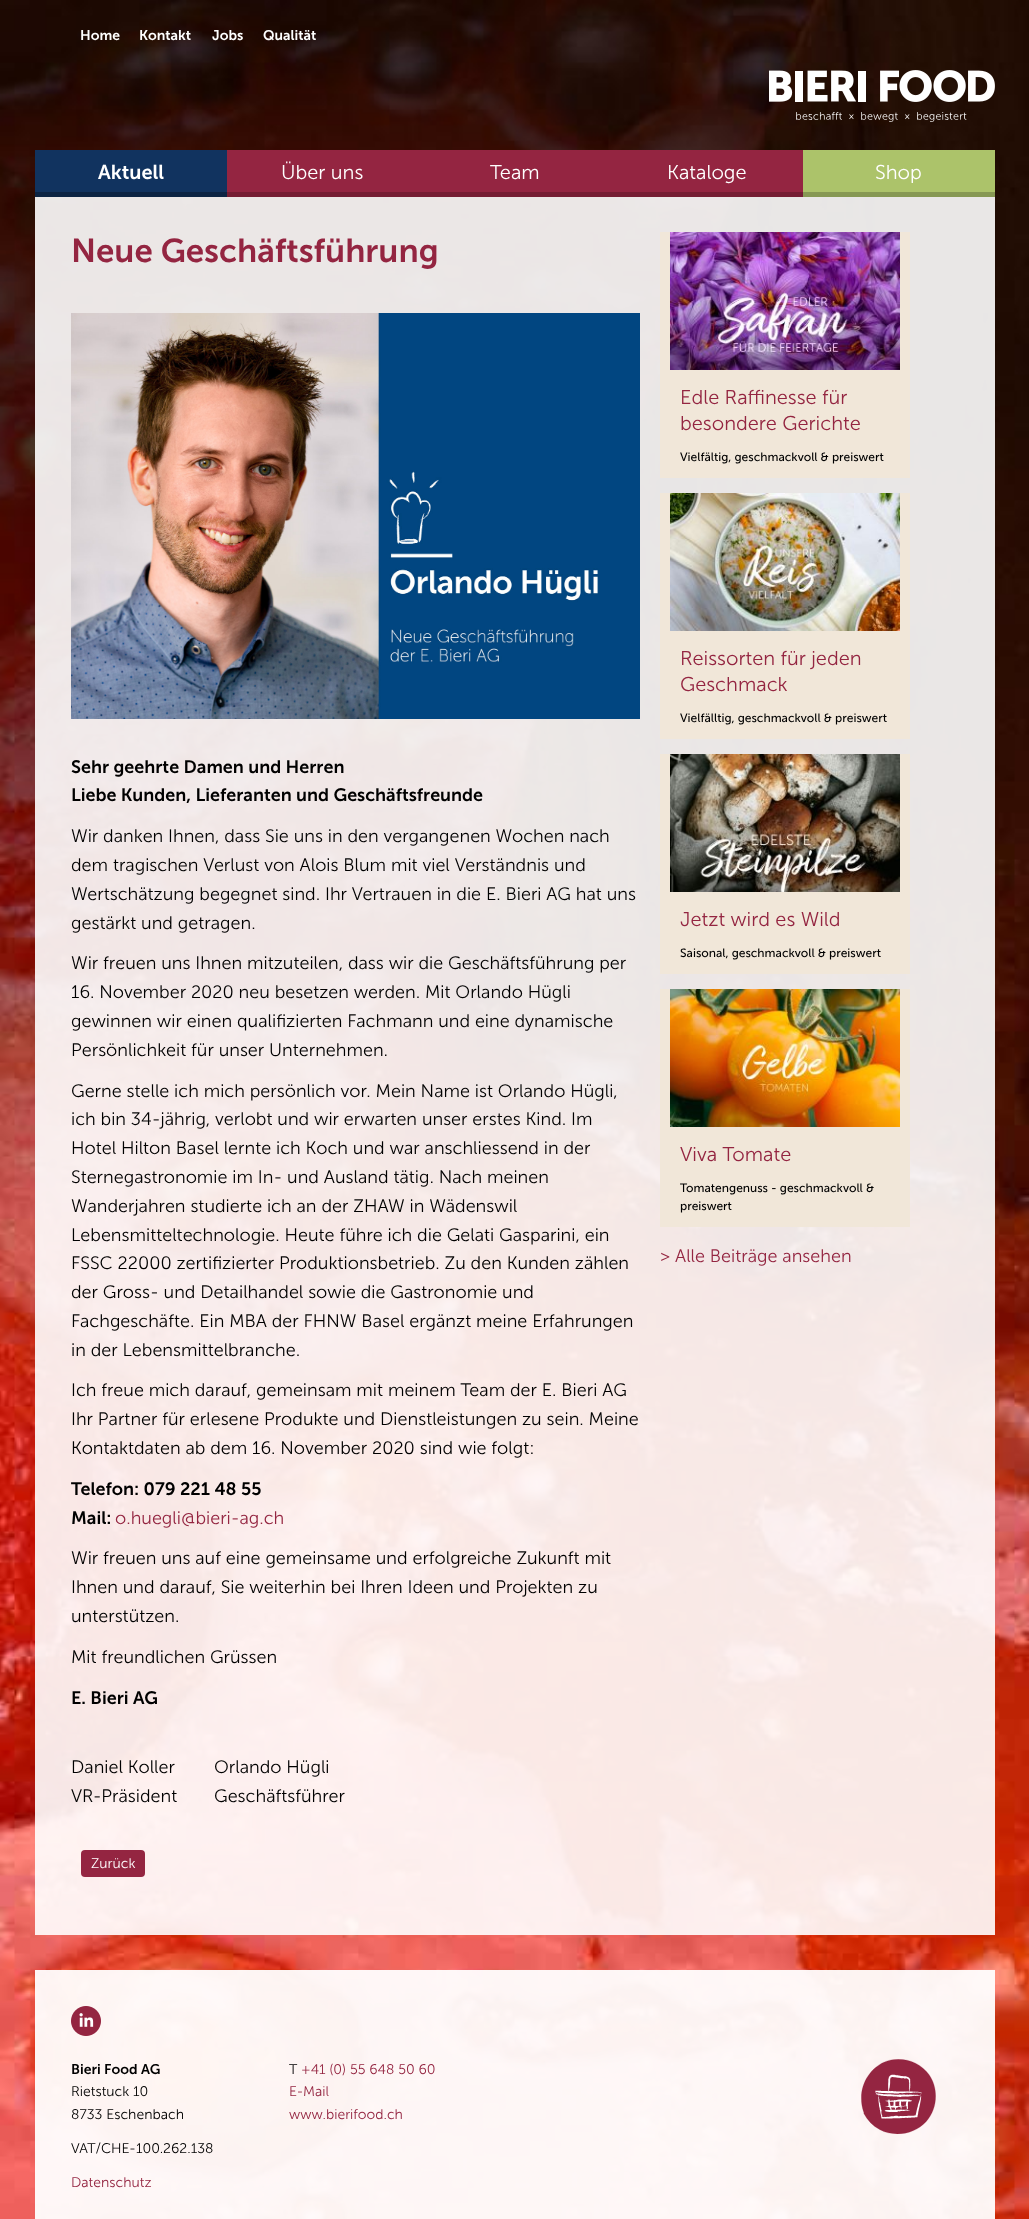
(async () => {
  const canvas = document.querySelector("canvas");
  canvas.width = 1029;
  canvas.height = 2219;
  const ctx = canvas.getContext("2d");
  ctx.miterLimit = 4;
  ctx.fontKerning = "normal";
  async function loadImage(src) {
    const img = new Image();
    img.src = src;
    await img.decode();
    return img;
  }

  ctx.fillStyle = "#ffffff";
  ctx.fillRect(0, 0, 1029, 2219);
  ctx.drawImage(await loadImage("img/1.png"), 0, 0, 1029, 2219);
  ctx.drawImage(await loadImage("img/2.png"), 769, 70, 226, 52);
  for (const [x, y, w, h, color] of [
    [35, 150, 192, 42, "#11335f"],
    [35, 192, 192, 5, "#0c2443"],
    [227, 150, 576, 42, "#942541"],
    [227, 192, 576, 5, "#751d33"],
    [803, 150, 192, 42, "#acc36a"],
    [803, 192, 192, 5, "#869853"],
    [35, 197, 960, 1738, "rgba(255, 255, 255, 0.9)"],
  ]) {
    ctx.fillStyle = color;
    ctx.fillRect(x, y, w, h);
  }
  ctx.drawImage(await loadImage("img/3.png"), 71, 313, 569, 406);
  ctx.fillStyle = "#942541";
  ctx.beginPath();
  ctx.roundRect(81, 1850, 64, 27, 4);
  ctx.fill();
  ctx.fillStyle = "#f1e7d9";
  ctx.fillRect(660, 232, 250, 246);
  ctx.drawImage(await loadImage("img/4.png"), 670, 232, 230, 138);
  ctx.fillRect(660, 493, 250, 246);
  ctx.drawImage(await loadImage("img/5.png"), 670, 493, 230, 138);
  ctx.fillRect(660, 754, 250, 220);
  ctx.drawImage(await loadImage("img/6.png"), 670, 754, 230, 138);
  ctx.fillRect(660, 989, 250, 238);
  ctx.drawImage(await loadImage("img/7.png"), 670, 989, 230, 138);
  ctx.fillStyle = "rgba(255, 255, 255, 0.95)";
  ctx.fillRect(35, 1970, 960, 249);
  ctx.drawImage(await loadImage("img/8.png"), 71, 2006, 30, 30);
  ctx.drawImage(await loadImage("img/9.png"), 861, 2059, 75, 75);
  ctx.font = "600 14px 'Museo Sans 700'";
  ctx.fillStyle = "#ffffff";
  for (const [text, x, y] of [
    ["Home", 80, 40],
    ["Kontakt", 139, 40],
    ["Jobs", 212, 40],
    ["Qualität", 263, 40],
  ]) {
    ctx.fillText(text, x, y);
  }
  ctx.font = "600 20px 'Museo Sans 700'";
  ctx.fillText("Aktuell", 98, 179);
  ctx.font = "300 20px 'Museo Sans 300'";
  for (const [text, x, y] of [
    ["Über uns", 281, 179],
    ["Team", 490, 179],
    ["Kataloge", 667, 179],
    ["Shop", 875, 179],
  ]) {
    ctx.fillText(text, x, y);
  }
  ctx.font = "600 33px 'Museo Sans 700'";
  ctx.fillStyle = "#942541";
  ctx.fillText("Neue Geschäftsführung", 71, 262);
  ctx.font = "600 18px 'Museo Sans 700'";
  ctx.fillStyle = "#000000";
  ctx.fillText("Sehr geehrte Damen und Herren", 71, 773);
  ctx.fillText("Liebe Kunden, Lieferanten und Geschäftsfreunde", 71, 801);
  ctx.font = "300 18px 'Museo Sans 300'";
  for (const [text, x, y] of [
    ["Wir danken Ihnen, dass Sie uns in den vergangenen Wochen nach", 71, 842],
    ["dem tragischen Verlust von Alois Blum mit viel Verständnis und", 71, 871],
    ["Wertschätzung begegnet sind. Ihr Vertrauen in die E. Bieri AG hat uns", 71, 900],
    ["gestärkt und getragen.", 71, 929],
    ["Wir freuen uns Ihnen mitzuteilen, dass wir die Geschäftsführung per", 71, 969],
    ["16. November 2020 neu besetzen werden. Mit Orlando Hügli", 71, 998],
    ["gewinnen wir einen qualifizierten Fachmann und eine dynamische", 71, 1027],
    ["Persönlichkeit für unser Unternehmen.", 71, 1056],
    ["Gerne stelle ich mich persönlich vor. Mein Name ist Orlando Hügli,", 71, 1097],
    ["ich bin 34-jährig, verlobt und wir erwarten unser erstes Kind. Im", 71, 1125],
    ["Hotel Hilton Basel lernte ich Koch und war anschliessend in der", 71, 1154],
    ["Sternegastronomie im In- und Ausland tätig. Nach meinen", 71, 1183],
    ["Wanderjahren studierte ich an der ZHAW in Wädenswil", 71, 1212],
    ["Lebensmitteltechnologie. Heute führe ich die Gelati Gasparini, ein", 71, 1241],
    ["FSSC 22000 zertifizierter Produktionsbetrieb. Zu den Kunden zählen", 71, 1269],
    ["der Gross- und Detailhandel sowie die Gastronomie und", 71, 1298],
    ["Fachgeschäfte. Ein MBA der FHNW Basel ergänzt meine Erfahrungen", 71, 1327],
    ["in der Lebensmittelbranche.", 71, 1356],
    ["Ich freue mich darauf, gemeinsam mit meinem Team der E. Bieri AG", 71, 1396],
    ["Ihr Partner für erlesene Produkte und Dienstleistungen zu sein. Meine", 71, 1425],
    ["Kontaktdaten ab dem 16. November 2020 sind wie folgt:", 71, 1454],
  ]) {
    ctx.fillText(text, x, y);
  }
  ctx.save();
  ctx.beginPath();
  ctx.rect(71, 753, 569, 1070);
  ctx.clip();
  ctx.font = "600 18px 'Museo Sans 700'";
  ctx.fillText("Telefon: 079 221 48 55", 71, 1495);
  ctx.restore();
  ctx.font = "600 18px 'Museo Sans 700'";
  ctx.fillText("Mail:", 71, 1524);
  ctx.font = "300 18px 'Museo Sans 300'";
  ctx.fillStyle = "#942541";
  ctx.fillText("o.huegli@bieri-ag.ch", 115, 1524);
  ctx.fillStyle = "#000000";
  for (const [text, x, y] of [
    ["Wir freuen uns auf eine gemeinsame und erfolgreiche Zukunft mit", 71, 1564],
    ["Ihnen und darauf, Sie weiterhin bei Ihren Ideen und Projekten zu", 71, 1593],
    ["unterstützen.", 71, 1622],
    ["Mit freundlichen Grüssen", 71, 1663],
  ]) {
    ctx.fillText(text, x, y);
  }
  ctx.font = "600 18px 'Museo Sans 700'";
  ctx.fillText("E. Bieri AG", 71, 1704);
  ctx.font = "300 18px 'Museo Sans 300'";
  for (const [text, x, y] of [
    ["Daniel Koller", 71, 1773],
    ["VR-Präsident", 71, 1802],
    ["Orlando Hügli", 214, 1773],
    ["Geschäftsführer", 214, 1802],
  ]) {
    ctx.fillText(text, x, y);
  }
  ctx.font = "300 14px 'Museo Sans 300'";
  ctx.fillStyle = "#ffffff";
  ctx.fillText("Zurück", 91, 1868);
  ctx.font = "300 20px 'Museo Sans 300'";
  ctx.fillStyle = "#942541";
  ctx.fillText("Edle Raffinesse für", 680, 404);
  ctx.fillText("besondere Gerichte", 680, 430);
  ctx.font = "12px 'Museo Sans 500'";
  ctx.fillStyle = "#000000";
  ctx.fillText("Vielfältig, geschmackvoll & preiswert", 680, 461);
  ctx.font = "300 20px 'Museo Sans 300'";
  ctx.fillStyle = "#942541";
  ctx.fillText("Reissorten für jeden", 680, 665);
  ctx.fillText("Geschmack", 680, 691);
  ctx.font = "12px 'Museo Sans 500'";
  ctx.fillStyle = "#000000";
  ctx.fillText("Vielfälltig, geschmackvoll & preiswert", 680, 722);
  ctx.font = "300 20px 'Museo Sans 300'";
  ctx.fillStyle = "#942541";
  ctx.fillText("Jetzt wird es Wild", 680, 926);
  ctx.font = "12px 'Museo Sans 500'";
  ctx.fillStyle = "#000000";
  ctx.fillText("Saisonal, geschmackvoll & preiswert", 680, 957);
  ctx.font = "300 20px 'Museo Sans 300'";
  ctx.fillStyle = "#942541";
  ctx.fillText("Viva Tomate", 680, 1161);
  ctx.font = "12px 'Museo Sans 500'";
  ctx.fillStyle = "#000000";
  ctx.fillText("Tomatengenuss - geschmackvoll &", 680, 1192);
  ctx.fillText("preiswert", 680, 1210);
  ctx.font = "300 18px 'Museo Sans 300'";
  ctx.fillStyle = "#942541";
  ctx.fillText("> Alle Beiträge ansehen", 660, 1262);
  ctx.font = "600 14px 'Museo Sans 700'";
  ctx.fillStyle = "#000000";
  ctx.fillText("Bieri Food AG", 71, 2074);
  ctx.font = "300 14px 'Museo Sans 300'";
  for (const [text, x, y] of [
    ["Rietstuck 10", 71, 2096],
    ["8733 Eschenbach", 71, 2119],
    ["VAT/CHE-100.262.138", 71, 2153],
  ]) {
    ctx.fillText(text, x, y);
  }
  ctx.fillStyle = "#942541";
  ctx.fillText("Datenschutz", 71, 2187);
  ctx.fillStyle = "#000000";
  ctx.fillText("T", 289, 2074);
  ctx.fillStyle = "#942541";
  for (const [text, x, y] of [
    ["+41 (0) 55 648 50 60", 301, 2074],
    ["E-Mail", 289, 2096],
    ["www.bierifood.ch", 289, 2119],
  ]) {
    ctx.fillText(text, x, y);
  }
})();
